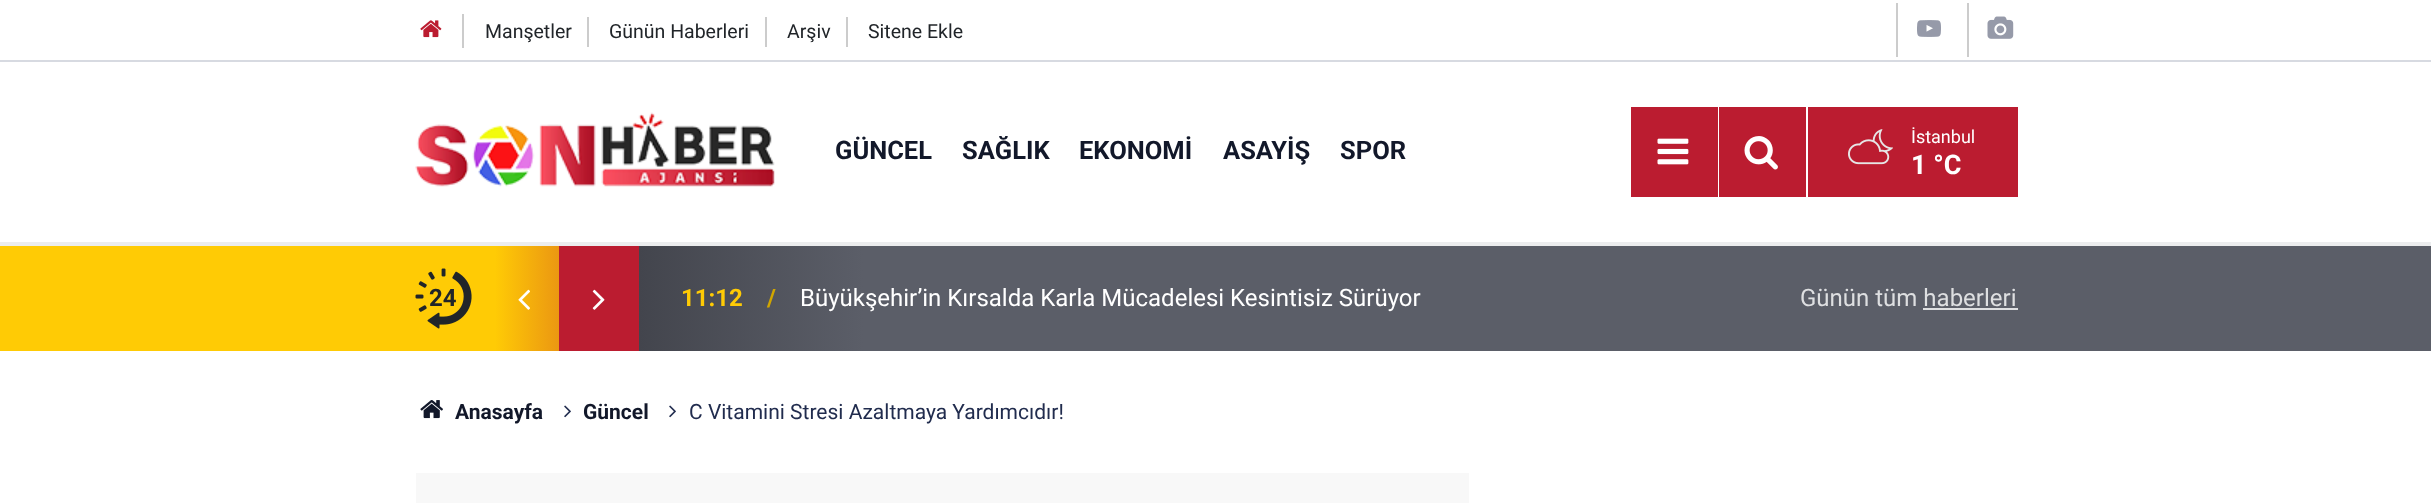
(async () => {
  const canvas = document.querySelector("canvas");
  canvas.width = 2431;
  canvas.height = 503;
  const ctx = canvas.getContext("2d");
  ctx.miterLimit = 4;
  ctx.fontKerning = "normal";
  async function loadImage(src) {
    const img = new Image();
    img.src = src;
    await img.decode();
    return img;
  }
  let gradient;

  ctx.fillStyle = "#ffffff";
  ctx.fillRect(0, 0, 2431, 503);
  ctx.fillStyle = "#cccccc";
  ctx.fillRect(462, 14, 2, 34);
  ctx.drawImage(await loadImage("img/1.png"), 420, 20, 22, 18);
  for (const [x, y, w, h, color] of [
    [587, 17, 2, 30, "#cccccc"],
    [765, 17, 2, 30, "#cccccc"],
    [846, 17, 2, 30, "#cccccc"],
    [1896, 3, 2, 54, "#cccccc"],
  ]) {
    ctx.fillStyle = color;
    ctx.fillRect(x, y, w, h);
  }
  ctx.drawImage(await loadImage("img/2.png"), 1917, 20, 24, 17);
  ctx.fillRect(1967, 3, 2, 54);
  ctx.drawImage(await loadImage("img/3.png"), 1987, 16, 27, 23);
  ctx.fillStyle = "#d7dae1";
  ctx.fillRect(0, 60, 2431, 2);
  ctx.fillStyle = "#ecedee";
  ctx.fillRect(0, 242, 2431, 4);
  ctx.drawImage(await loadImage("img/4.png"), 415, 112, 360, 75);
  ctx.fillStyle = "#bb1c30";
  ctx.fillRect(1631, 107, 87, 90);
  ctx.drawImage(await loadImage("img/5.png"), 1657, 138, 32, 27);
  ctx.fillRect(1719, 107, 87, 90);
  ctx.drawImage(await loadImage("img/6.png"), 1744, 136, 34, 34);
  ctx.fillRect(1808, 107, 210, 90);
  ctx.drawImage(await loadImage("img/7.png"), 1848, 129, 45, 36);
  ctx.fillStyle = "#ffcb05";
  ctx.fillRect(0, 246, 416, 105);
  ctx.fillStyle = "#5b5e68";
  ctx.fillRect(2018, 246, 413, 105);
  gradient = ctx.createLinearGradient(415, 299, 2017, 298);
  gradient.addColorStop(0.05, "#ffcb05");
  gradient.addColorStop(0.09, "#eb9712");
  gradient.addColorStop(0.09, "#bb1c30");
  gradient.addColorStop(0.14, "#bb1c30");
  gradient.addColorStop(0.14, "#43454d");
  gradient.addColorStop(0.28, "#5b5e68");
  ctx.fillStyle = gradient;
  ctx.fillRect(416, 246, 1602, 105);
  ctx.drawImage(await loadImage("img/8.png"), 415, 268, 57, 61);
  ctx.drawImage(await loadImage("img/9.png"), 518, 289, 12, 21);
  ctx.drawImage(await loadImage("img/10.png"), 592, 289, 13, 21);
  ctx.fillStyle = "#dedfe1";
  ctx.fillRect(1923, 308, 95, 2);
  ctx.drawImage(await loadImage("img/11.png"), 420, 400, 23, 19);
  ctx.drawImage(await loadImage("img/12.png"), 564, 405, 7, 13);
  ctx.drawImage(await loadImage("img/12.png"), 669, 405, 7, 13);
  ctx.fillStyle = "#f8f8f8";
  ctx.fillRect(416, 473, 1053, 30);
  ctx.font = "19.5px Roboto";
  ctx.fillStyle = "#212529";
  for (const [text, x, y] of [
    ["Manşetler", 485, 38],
    ["Günün Haberleri", 609, 38],
    ["Arşiv", 787, 38],
    ["Sitene Ekle", 868, 38],
  ]) {
    ctx.fillText(text, x, y);
  }
  ctx.font = "bold 25.5px Roboto";
  ctx.fillStyle = "#12182a";
  for (const [text, x, y] of [
    ["GÜNCEL", 835, 159],
    ["SAĞLIK", 962, 159],
    ["EKONOMİ", 1079, 159],
    ["ASAYİŞ", 1223, 159],
    ["SPOR", 1340, 159],
  ]) {
    ctx.fillText(text, x, y);
  }
  ctx.font = "18px Roboto";
  ctx.fillStyle = "#ffffff";
  ctx.fillText("İstanbul", 1911, 143);
  ctx.font = "bold 27px Roboto";
  ctx.fillText("1 °C", 1911, 174);
  ctx.font = "bold 24px Roboto";
  ctx.fillStyle = "#212529";
  ctx.fillText("24", 429, 306);
  ctx.fillStyle = "#ffcb05";
  ctx.fillText("11:12", 681, 306);
  ctx.fillStyle = "#d1a600";
  ctx.fillText("/", 767, 306);
  ctx.font = "24px Roboto";
  ctx.fillStyle = "#ffffff";
  ctx.fillText("Büyükşehir’in Kırsalda Karla Mücadelesi Kesintisiz Sürüyor", 800, 306);
  ctx.fillStyle = "#dedfe1";
  ctx.fillText("Günün tüm haberleri", 1800, 306);
  ctx.font = "bold 21px Roboto";
  ctx.fillStyle = "#12182a";
  ctx.fillText("Anasayfa", 455, 419);
  ctx.fillText("Güncel", 583, 419);
  ctx.font = "21px Roboto";
  ctx.fillStyle = "#212c4e";
  ctx.fillText("C Vitamini Stresi Azaltmaya Yardımcıdır!", 689, 419);
})();
